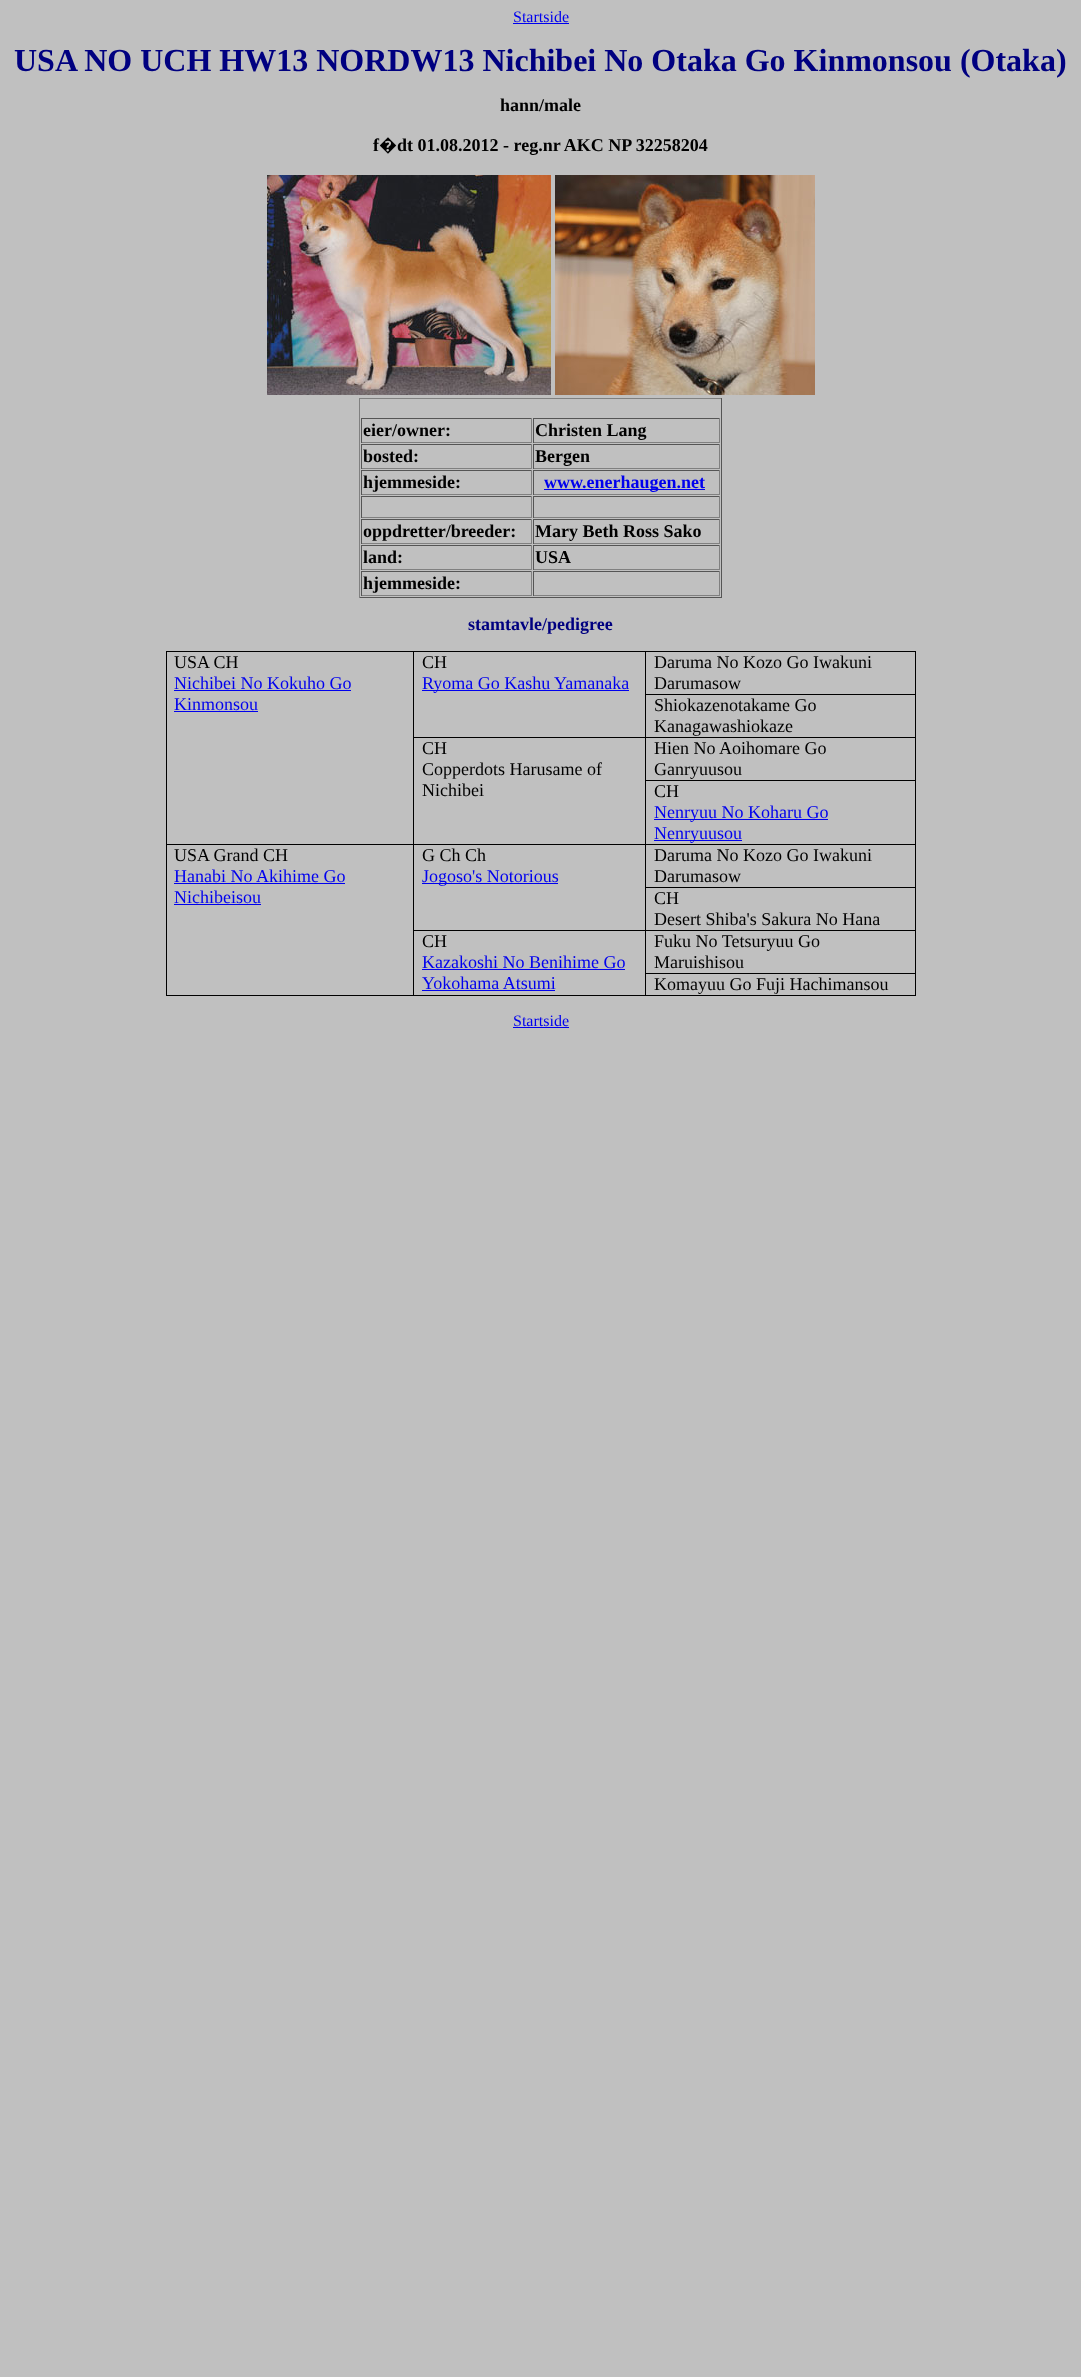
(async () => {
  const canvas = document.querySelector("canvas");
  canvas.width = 1081;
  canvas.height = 2377;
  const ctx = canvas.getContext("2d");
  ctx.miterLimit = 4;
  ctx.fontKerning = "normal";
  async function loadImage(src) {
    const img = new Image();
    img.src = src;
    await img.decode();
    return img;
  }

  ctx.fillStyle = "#c0c0c0";
  ctx.fillRect(0, 0, 1081, 2377);
  ctx.fillStyle = "#0000ee";
  ctx.fillRect(513, 23, 56, 1);
  ctx.drawImage(await loadImage("img/1.png"), 267, 175, 284, 220);
  ctx.drawImage(await loadImage("img/2.png"), 555, 175, 260, 220);
  for (const [x, y, w, h, color] of [
    [359, 398, 363, 1, "#808080"],
    [721, 398, 1, 200, "#555555"],
    [359, 597, 363, 1, "#555555"],
    [359, 398, 1, 200, "#808080"],
    [361, 418, 171, 1, "#555555"],
    [531, 418, 1, 25, "#808080"],
    [361, 442, 171, 1, "#808080"],
    [361, 418, 1, 25, "#555555"],
    [533, 418, 187, 1, "#555555"],
    [719, 418, 1, 25, "#808080"],
    [533, 442, 187, 1, "#808080"],
    [533, 418, 1, 25, "#555555"],
    [361, 444, 171, 1, "#555555"],
    [531, 444, 1, 25, "#808080"],
    [361, 468, 171, 1, "#808080"],
    [361, 444, 1, 25, "#555555"],
    [533, 444, 187, 1, "#555555"],
    [719, 444, 1, 25, "#808080"],
    [533, 468, 187, 1, "#808080"],
    [533, 444, 1, 25, "#555555"],
    [361, 470, 171, 1, "#555555"],
    [531, 470, 1, 25, "#808080"],
    [361, 494, 171, 1, "#808080"],
    [361, 470, 1, 25, "#555555"],
    [533, 470, 187, 1, "#555555"],
    [719, 470, 1, 25, "#808080"],
    [533, 494, 187, 1, "#808080"],
    [533, 470, 1, 25, "#555555"],
    [544, 489, 161, 1, "#0000ee"],
    [361, 496, 171, 1, "#555555"],
    [531, 496, 1, 22, "#808080"],
    [361, 517, 171, 1, "#808080"],
    [361, 496, 1, 22, "#555555"],
    [533, 496, 187, 1, "#555555"],
    [719, 496, 1, 22, "#808080"],
    [533, 517, 187, 1, "#808080"],
    [533, 496, 1, 22, "#555555"],
    [361, 519, 171, 1, "#555555"],
    [531, 519, 1, 25, "#808080"],
    [361, 543, 171, 1, "#808080"],
    [361, 519, 1, 25, "#555555"],
    [533, 519, 187, 1, "#555555"],
    [719, 519, 1, 25, "#808080"],
    [533, 543, 187, 1, "#808080"],
    [533, 519, 1, 25, "#555555"],
    [361, 545, 171, 1, "#555555"],
    [531, 545, 1, 25, "#808080"],
    [361, 569, 171, 1, "#808080"],
    [361, 545, 1, 25, "#555555"],
    [533, 545, 187, 1, "#555555"],
    [719, 545, 1, 25, "#808080"],
    [533, 569, 187, 1, "#808080"],
    [533, 545, 1, 25, "#555555"],
    [361, 571, 171, 1, "#555555"],
    [531, 571, 1, 25, "#808080"],
    [361, 595, 171, 1, "#808080"],
    [361, 571, 1, 25, "#555555"],
    [533, 571, 187, 1, "#555555"],
    [719, 571, 1, 25, "#808080"],
    [533, 595, 187, 1, "#808080"],
    [533, 571, 1, 25, "#555555"],
    [166, 651, 750, 1, "#000000"],
    [915, 694, 1, 302, "#000000"],
    [915, 651, 1, 44, "#000000"],
    [645, 694, 271, 1, "#000000"],
    [645, 780, 271, 1, "#000000"],
    [645, 887, 271, 1, "#000000"],
    [645, 973, 271, 1, "#000000"],
    [645, 995, 271, 1, "#000000"],
    [645, 930, 1, 66, "#000000"],
    [645, 930, 271, 1, "#000000"],
    [645, 844, 1, 87, "#000000"],
    [645, 844, 271, 1, "#000000"],
    [645, 737, 1, 108, "#000000"],
    [645, 737, 271, 1, "#000000"],
    [645, 651, 1, 87, "#000000"],
    [413, 737, 233, 1, "#000000"],
    [413, 930, 233, 1, "#000000"],
    [413, 995, 233, 1, "#000000"],
    [413, 844, 1, 152, "#000000"],
    [413, 844, 233, 1, "#000000"],
    [413, 651, 1, 194, "#000000"],
    [166, 995, 248, 1, "#000000"],
    [166, 844, 1, 152, "#000000"],
    [166, 844, 248, 1, "#000000"],
    [166, 651, 1, 194, "#000000"],
    [174, 690, 177, 1, "#0000ee"],
    [174, 711, 84, 1, "#0000ee"],
    [422, 690, 207, 1, "#0000ee"],
    [654, 819, 174, 1, "#0000ee"],
    [654, 840, 88, 1, "#0000ee"],
    [174, 883, 171, 1, "#0000ee"],
    [174, 904, 87, 1, "#0000ee"],
    [422, 883, 136, 1, "#0000ee"],
    [422, 969, 203, 1, "#0000ee"],
    [422, 990, 133, 1, "#0000ee"],
    [513, 1027, 56, 1, "#0000ee"],
  ]) {
    ctx.fillStyle = color;
    ctx.fillRect(x, y, w, h);
  }
  ctx.font = "16px Liberation Serif";
  ctx.fillText("Startside", 513, 22);
  ctx.font = "bold 32px Liberation Serif";
  ctx.fillStyle = "#000080";
  ctx.fillText("USA NO UCH HW13 NORDW13 Nichibei No Otaka Go Kinmonsou (Otaka)", 14, 71);
  ctx.font = "bold 18px Liberation Serif";
  ctx.fillStyle = "#000000";
  ctx.fillText("hann/male", 500, 111);
  ctx.fillText("f", 373, 151);
  ctx.font = "bold 18px Noto Sans";
  ctx.fillText("�", 379, 151);
  ctx.font = "bold 18px Liberation Serif";
  for (const [text, x, y] of [
    ["dt 01.08.2012 - reg.nr AKC NP 32258204", 397, 151],
    ["eier/owner:", 363, 436],
    ["Christen Lang", 535, 436],
    ["bosted:", 363, 462],
    ["Bergen", 535, 462],
    ["hjemmeside:", 363, 488],
  ]) {
    ctx.fillText(text, x, y);
  }
  ctx.fillStyle = "#0000ee";
  ctx.fillText("www.enerhaugen.net", 544, 488);
  ctx.fillStyle = "#000000";
  for (const [text, x, y] of [
    ["oppdretter/breeder:", 363, 537],
    ["Mary Beth Ross Sako", 535, 537],
    ["land:", 363, 563],
    ["USA", 535, 563],
    ["hjemmeside:", 363, 589],
  ]) {
    ctx.fillText(text, x, y);
  }
  ctx.fillStyle = "#000080";
  ctx.fillText("stamtavle/pedigree", 468, 630);
  ctx.font = "18px Liberation Serif";
  ctx.fillStyle = "#000000";
  ctx.fillText("USA CH", 174, 668);
  ctx.fillStyle = "#0000ee";
  ctx.fillText("Nichibei No Kokuho Go", 174, 689);
  ctx.fillText("Kinmonsou", 174, 710);
  ctx.fillStyle = "#000000";
  ctx.fillText("CH", 422, 668);
  ctx.fillStyle = "#0000ee";
  ctx.fillText("Ryoma Go Kashu Yamanaka", 422, 689);
  ctx.fillStyle = "#000000";
  for (const [text, x, y] of [
    ["Daruma No Kozo Go Iwakuni", 654, 668],
    ["Darumasow", 654, 689],
    ["Shiokazenotakame Go", 654, 711],
    ["Kanagawashiokaze", 654, 732],
    ["CH", 422, 754],
    ["Copperdots Harusame of", 422, 775],
    ["Nichibei", 422, 796],
    ["Hien No Aoihomare Go", 654, 754],
    ["Ganryuusou", 654, 775],
    ["CH", 654, 797],
  ]) {
    ctx.fillText(text, x, y);
  }
  ctx.fillStyle = "#0000ee";
  ctx.fillText("Nenryuu No Koharu Go", 654, 818);
  ctx.fillText("Nenryuusou", 654, 839);
  ctx.fillStyle = "#000000";
  ctx.fillText("USA Grand CH", 174, 861);
  ctx.fillStyle = "#0000ee";
  ctx.fillText("Hanabi No Akihime Go", 174, 882);
  ctx.fillText("Nichibeisou", 174, 903);
  ctx.fillStyle = "#000000";
  ctx.fillText("G Ch Ch", 422, 861);
  ctx.fillStyle = "#0000ee";
  ctx.fillText("Jogoso's Notorious", 422, 882);
  ctx.fillStyle = "#000000";
  for (const [text, x, y] of [
    ["Daruma No Kozo Go Iwakuni", 654, 861],
    ["Darumasow", 654, 882],
    ["CH", 654, 904],
    ["Desert Shiba's Sakura No Hana", 654, 925],
    ["CH", 422, 947],
  ]) {
    ctx.fillText(text, x, y);
  }
  ctx.fillStyle = "#0000ee";
  ctx.fillText("Kazakoshi No Benihime Go", 422, 968);
  ctx.fillText("Yokohama Atsumi", 422, 989);
  ctx.fillStyle = "#000000";
  for (const [text, x, y] of [
    ["Fuku No Tetsuryuu Go", 654, 947],
    ["Maruishisou", 654, 968],
    ["Komayuu Go Fuji Hachimansou", 654, 990],
  ]) {
    ctx.fillText(text, x, y);
  }
  ctx.font = "16px Liberation Serif";
  ctx.fillStyle = "#0000ee";
  ctx.fillText("Startside", 513, 1026);
})();
